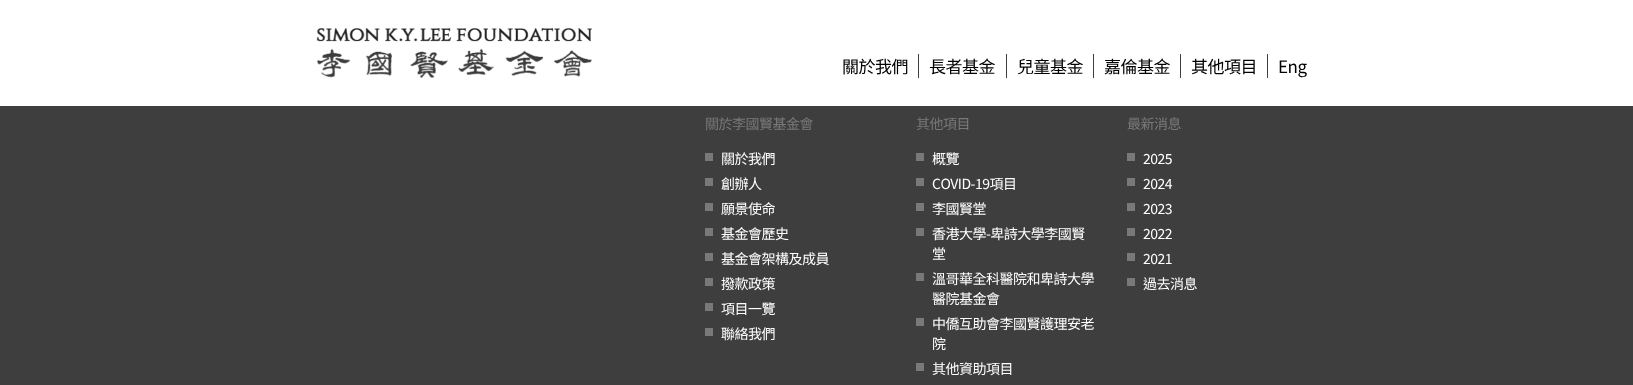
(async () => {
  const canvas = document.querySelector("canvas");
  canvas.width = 1633;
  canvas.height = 385;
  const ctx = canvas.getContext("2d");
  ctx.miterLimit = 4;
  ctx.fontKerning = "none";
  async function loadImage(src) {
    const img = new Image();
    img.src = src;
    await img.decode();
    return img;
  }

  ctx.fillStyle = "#3e3e3e";
  ctx.fillRect(0, 0, 1633, 385);
  ctx.fillStyle = "#ffffff";
  ctx.fillRect(0, 0, 1633, 106);
  ctx.drawImage(await loadImage("img/1.png"), 316, 28, 276, 50);
  for (const [x, y, w, h, color] of [
    [918, 54, 1, 24, "#3e3e3e"],
    [1006, 54, 1, 24, "#3e3e3e"],
    [1093, 54, 1, 24, "#3e3e3e"],
    [1180, 54, 1, 24, "#3e3e3e"],
    [1267, 54, 1, 24, "#3e3e3e"],
    [705, 153, 8, 8, "#797979"],
    [705, 178, 8, 8, "#797979"],
    [705, 203, 8, 8, "#797979"],
    [705, 228, 8, 8, "#797979"],
    [705, 253, 8, 8, "#797979"],
    [705, 278, 8, 8, "#797979"],
    [705, 303, 8, 8, "#797979"],
    [705, 328, 8, 8, "#797979"],
    [916, 153, 8, 8, "#797979"],
    [916, 178, 8, 8, "#797979"],
    [916, 203, 8, 8, "#797979"],
    [916, 228, 8, 8, "#797979"],
    [916, 273, 8, 8, "#797979"],
    [916, 318, 8, 8, "#797979"],
    [916, 363, 8, 8, "#797979"],
    [1127, 153, 8, 8, "#797979"],
    [1127, 178, 8, 8, "#797979"],
    [1127, 203, 8, 8, "#797979"],
    [1127, 228, 8, 8, "#797979"],
    [1127, 253, 8, 8, "#797979"],
    [1127, 278, 8, 8, "#797979"],
  ]) {
    ctx.fillStyle = color;
    ctx.fillRect(x, y, w, h);
  }
  ctx.letterSpacing = "-0.5px";
  ctx.font = "17px Noto Sans TC";
  ctx.fillStyle = "#000000";
  for (const [text, x, y] of [
    ["關於我們", 842, 73],
    ["長者基金", 929, 73],
    ["兒童基金", 1017, 73],
    ["嘉倫基金", 1104, 73],
    ["其他項目", 1191, 73],
    ["Eng", 1278, 73],
  ]) {
    ctx.fillText(text, x, y);
  }
  ctx.font = "14px Noto Sans CJK HK";
  ctx.fillStyle = "#797979";
  ctx.fillText("關於李國賢基金會", 705, 129);
  ctx.font = "14px Noto Sans TC";
  ctx.fillStyle = "#ffffff";
  for (const [text, x, y] of [
    ["關於我們", 721, 164],
    ["創辦人", 721, 189],
    ["願景使命", 721, 214],
    ["基金會歷史", 721, 239],
    ["基金會架構及成員", 721, 264],
    ["撥款政策", 721, 289],
    ["項目一覽", 721, 314],
    ["聯絡我們", 721, 339],
  ]) {
    ctx.fillText(text, x, y);
  }
  ctx.font = "14px Noto Sans CJK HK";
  ctx.fillStyle = "#797979";
  ctx.fillText("其他項目", 916, 129);
  ctx.font = "14px Noto Sans TC";
  ctx.fillStyle = "#ffffff";
  for (const [text, x, y] of [
    ["概覽", 932, 164],
    ["COVID-19項目", 932, 189],
    ["李國賢堂", 932, 214],
    ["香港大學-卑詩大學李國賢", 932, 239],
    ["堂", 932, 259],
    ["溫哥華全科醫院和卑詩大學", 932, 284],
    ["醫院基金會", 932, 304],
    ["中僑互助會李國賢護理安老", 932, 329],
    ["院", 932, 349],
    ["其他資助項目", 932, 374],
  ]) {
    ctx.fillText(text, x, y);
  }
  ctx.font = "14px Noto Sans CJK HK";
  ctx.fillStyle = "#797979";
  ctx.fillText("最新消息", 1127, 129);
  ctx.font = "14px Noto Sans TC";
  ctx.fillStyle = "#ffffff";
  for (const [text, x, y] of [
    ["2025", 1143, 164],
    ["2024", 1143, 189],
    ["2023", 1143, 214],
    ["2022", 1143, 239],
    ["2021", 1143, 264],
    ["過去消息", 1143, 289],
  ]) {
    ctx.fillText(text, x, y);
  }
})();
